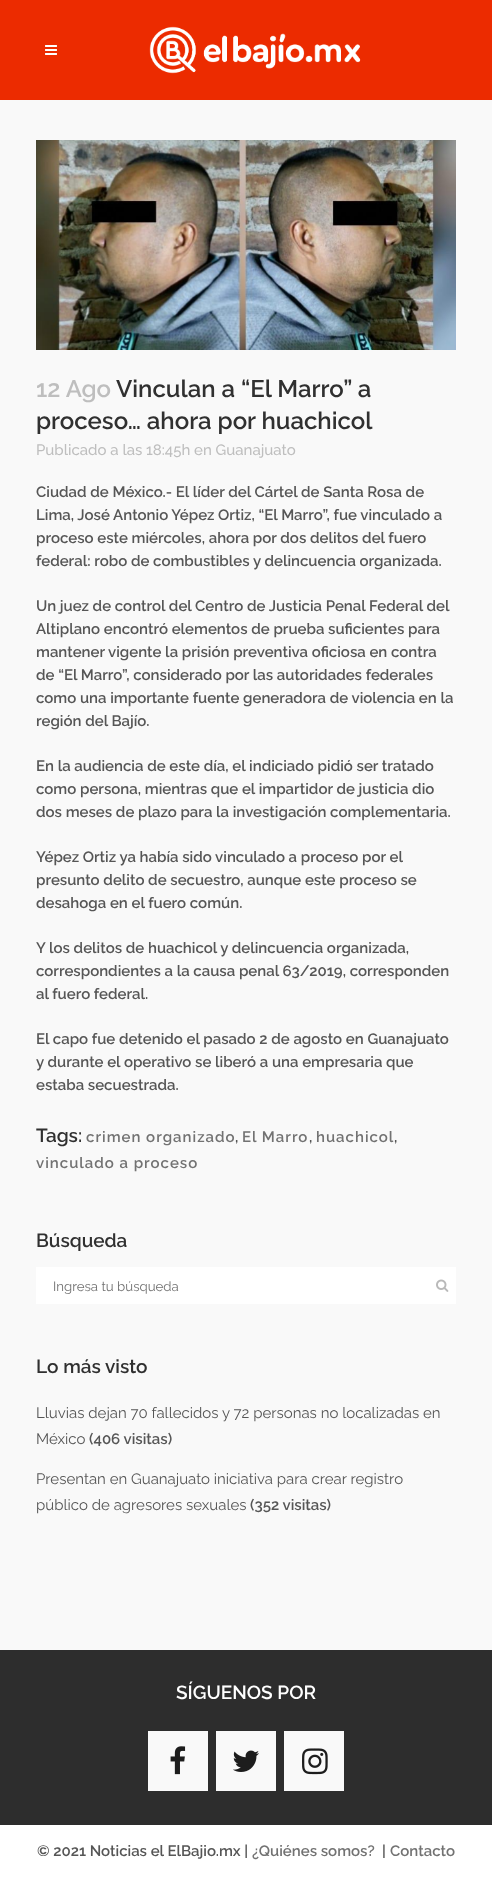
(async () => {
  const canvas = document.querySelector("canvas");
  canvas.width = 492;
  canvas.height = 1878;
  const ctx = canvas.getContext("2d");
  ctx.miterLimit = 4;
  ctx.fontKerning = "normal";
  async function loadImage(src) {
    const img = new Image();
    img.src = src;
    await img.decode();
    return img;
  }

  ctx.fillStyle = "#ffffff";
  ctx.fillRect(0, 0, 492, 1878);
  ctx.fillStyle = "#ec2b00";
  ctx.fillRect(0, 0, 492, 100);
  ctx.drawImage(await loadImage("img/1.png"), 45, 45, 12, 10);
  ctx.drawImage(await loadImage("img/2.png"), 149, 26, 212, 48);
  ctx.fillStyle = "#f9f9f9";
  ctx.fillRect(0, 100, 492, 1550);
  ctx.drawImage(await loadImage("img/3.png"), 36, 140, 420, 210);
  ctx.fillStyle = "#ffffff";
  ctx.fillRect(36, 1267, 420, 37);
  ctx.drawImage(await loadImage("img/4.png"), 436, 1279, 13, 13);
  ctx.fillStyle = "#2d2d2d";
  ctx.fillRect(0, 1650, 492, 175);
  ctx.fillStyle = "#f9f9f9";
  ctx.fillRect(148, 1731, 60, 60);
  ctx.drawImage(await loadImage("img/5.png"), 170, 1746, 16, 29);
  ctx.fillRect(216, 1731, 60, 60);
  ctx.drawImage(await loadImage("img/6.png"), 233, 1750, 26, 22);
  ctx.fillRect(284, 1731, 60, 60);
  ctx.drawImage(await loadImage("img/7.png"), 302, 1748, 26, 27);
  ctx.font = "600 24px Raleway";
  ctx.fillStyle = "#bebebe";
  ctx.fillText("12 Ago", 36, 397);
  ctx.fillStyle = "#303030";
  ctx.fillText("Vinculan a “El Marro” a", 116, 397);
  ctx.fillText("proceso… ahora por huachicol", 36, 429);
  ctx.font = "500 15px Raleway";
  ctx.fillStyle = "#bebebe";
  ctx.fillText("Publicado a las 18:45h en Guanajuato", 36, 455);
  ctx.font = "600 15px Raleway";
  ctx.fillStyle = "#565656";
  for (const [text, x, y] of [
    ["Ciudad de México.- El líder del Cártel de Santa Rosa de", 36, 497],
    ["Lima, José Antonio Yépez Ortiz, “El Marro”, fue vinculado a", 36, 520],
    ["proceso este miércoles, ahora por dos delitos del fuero", 36, 543],
    ["federal: robo de combustibles y delincuencia organizada.", 36, 566],
    ["Un juez de control del Centro de Justicia Penal Federal del", 36, 611],
    ["Altiplano encontró elementos de prueba suficientes para", 36, 634],
    ["mantener vigente la prisión preventiva oficiosa en contra", 36, 657],
    ["de “El Marro”, considerado por las autoridades federales", 36, 680],
    ["como una importante fuente generadora de violencia en la", 36, 703],
    ["región del Bajío.", 36, 726],
    ["En la audiencia de este día, el indiciado pidió ser tratado", 36, 771],
    ["como persona, mientras que el impartidor de justicia dio", 36, 794],
    ["dos meses de plazo para la investigación complementaria.", 36, 817],
    ["Yépez Ortiz ya había sido vinculado a proceso por el", 36, 862],
    ["presunto delito de secuestro, aunque este proceso se", 36, 885],
    ["desahoga en el fuero común.", 36, 908],
    ["Y los delitos de huachicol y delincuencia organizada,", 36, 953],
    ["correspondientes a la causa penal 63/2019, corresponden", 36, 976],
    ["al fuero federal.", 36, 999],
    ["El capo fue detenido el pasado 2 de agosto en Guanajuato", 36, 1044],
    ["y durante el operativo se liberó a una empresaria que", 36, 1067],
    ["estaba secuestrada.", 36, 1090],
  ]) {
    ctx.fillText(text, x, y);
  }
  ctx.font = "600 19px Raleway";
  ctx.fillStyle = "#303030";
  ctx.fillText("Tags:", 36, 1142);
  ctx.letterSpacing = "1px";
  ctx.font = "600 15px Raleway";
  ctx.fillStyle = "#727272";
  ctx.fillText("crimen organizado", 86, 1142);
  ctx.letterSpacing = "0px";
  ctx.fillStyle = "#565656";
  ctx.fillText(",", 235, 1142);
  ctx.letterSpacing = "1px";
  ctx.fillStyle = "#727272";
  ctx.fillText("El Marro", 242, 1142);
  ctx.letterSpacing = "0px";
  ctx.fillStyle = "#565656";
  ctx.fillText(",", 309, 1142);
  ctx.letterSpacing = "1px";
  ctx.fillStyle = "#727272";
  ctx.fillText("huachicol", 316, 1142);
  ctx.letterSpacing = "0px";
  ctx.fillStyle = "#565656";
  ctx.fillText(",", 394, 1142);
  ctx.letterSpacing = "1px";
  ctx.fillStyle = "#727272";
  ctx.fillText("vinculado a proceso", 36, 1168);
  ctx.letterSpacing = "0px";
  ctx.font = "600 19px Raleway";
  ctx.fillStyle = "#303030";
  ctx.fillText("Búsqueda", 36, 1247);
  ctx.font = "13.25px Raleway";
  ctx.fillStyle = "#727272";
  ctx.fillText("Ingresa tu búsqueda", 53, 1291);
  ctx.font = "600 19px Raleway";
  ctx.fillStyle = "#303030";
  ctx.fillText("Lo más visto", 36, 1373);
  ctx.font = "15px Raleway";
  ctx.fillStyle = "#565656";
  ctx.fillText("Lluvias dejan 70 fallecidos y 72 personas no localizadas en", 36, 1418);
  ctx.fillText("México", 36, 1444);
  ctx.font = "600 15px Raleway";
  ctx.fillText("(406 visitas)", 89, 1444);
  ctx.font = "15px Raleway";
  ctx.fillText("Presentan en Guanajuato iniciativa para crear registro", 36, 1484);
  ctx.fillText("público de agresores sexuales", 36, 1510);
  ctx.font = "600 15px Raleway";
  ctx.fillText("(352 visitas)", 250, 1510);
  ctx.font = "600 19px Raleway";
  ctx.fillStyle = "#ffffff";
  ctx.fillText("SÍGUENOS POR", 176, 1699);
  ctx.font = "600 15px Raleway";
  ctx.fillStyle = "#565656";
  ctx.fillText("© 2021 Noticias el ElBajio.mx |", 37, 1856);
  ctx.fillStyle = "#727272";
  ctx.fillText("¿Quiénes somos?", 252, 1856);
  ctx.fillStyle = "#565656";
  ctx.fillText("|", 382, 1856);
  ctx.fillStyle = "#727272";
  ctx.fillText("Contacto", 390, 1856);
})();
